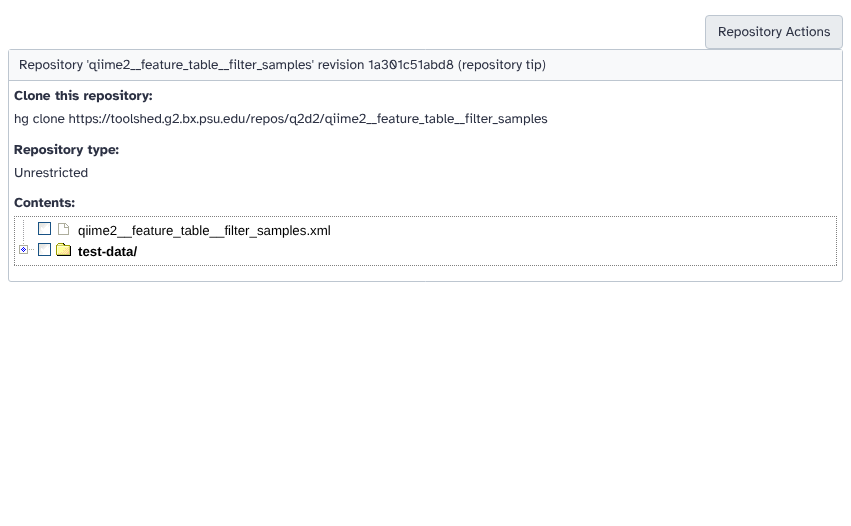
(async () => {
  const canvas = document.querySelector("canvas");
  canvas.width = 851;
  canvas.height = 526;
  const ctx = canvas.getContext("2d");
  ctx.miterLimit = 4;
  ctx.fontKerning = "normal";
  async function loadImage(src) {
    const img = new Image();
    img.src = src;
    await img.decode();
    return img;
  }
  let path;

  ctx.fillStyle = "#ffffff";
  ctx.fillRect(0, 0, 851, 526);
  ctx.fillStyle = "#e9ecef";
  ctx.beginPath();
  ctx.roundRect(705.5, 15.5, 137, 33, 3.5);
  ctx.fill();
  ctx.strokeStyle = "#bdc6d0";
  ctx.stroke();
  ctx.beginPath();
  ctx.roundRect(8.5, 49.5, 834, 232, 2.5);
  ctx.stroke();
  ctx.fillStyle = "#f8f9fa";
  ctx.fillRect(9, 50, 833, 30);
  ctx.fillStyle = "#bdc6d0";
  ctx.fillRect(9, 80, 833, 1);
  path = new Path2D("M14 216.5H837");
  ctx.strokeStyle = "#808080";
  ctx.setLineDash([1, 1]);
  ctx.stroke(path);
  path = new Path2D("M836.5 216V266");
  ctx.stroke(path);
  path = new Path2D("M14 265.5H837");
  ctx.stroke(path);
  path = new Path2D("M14.5 216V266");
  ctx.stroke(path);
  ctx.drawImage(await loadImage("img/1.png"), 23, 220, 1, 21);
  ctx.drawImage(await loadImage("img/2.png"), 38, 222, 13, 13);
  ctx.drawImage(await loadImage("img/3.png"), 58, 223, 11, 12);
  ctx.drawImage(await loadImage("img/4.png"), 19, 243, 15, 11);
  ctx.drawImage(await loadImage("img/2.png"), 38, 243, 13, 13);
  ctx.drawImage(await loadImage("img/5.png"), 56, 243, 15, 13);
  ctx.font = "13.6px Atkinson Hyperlegible";
  ctx.fillStyle = "#2c3143";
  ctx.fillText("Repository Actions", 718, 36);
  ctx.fillText("Repository 'qiime2__feature_table__filter_samples' revision 1a301c51abd8 (repository tip)", 19, 69);
  ctx.font = "bold 13.6px Atkinson Hyperlegible";
  ctx.fillText("Clone this repository:", 14, 100);
  ctx.font = "13.6px Atkinson Hyperlegible";
  ctx.fillText("hg clone https://toolshed.g2.bx.psu.edu/repos/q2d2/qiime2__feature_table__filter_samples", 14, 123);
  ctx.font = "bold 13.6px Atkinson Hyperlegible";
  ctx.fillText("Repository type:", 14, 154);
  ctx.font = "13.6px Atkinson Hyperlegible";
  ctx.fillText("Unrestricted", 14, 177);
  ctx.font = "bold 13.6px Atkinson Hyperlegible";
  ctx.fillText("Contents:", 14, 207);
  ctx.font = "13.3px Liberation Sans";
  ctx.fillStyle = "#000000";
  ctx.fillText("qiime2__feature_table__filter_samples.xml", 78, 235);
  ctx.font = "bold 13.3px Liberation Sans";
  ctx.fillText("test-data/", 78, 256);
})();
